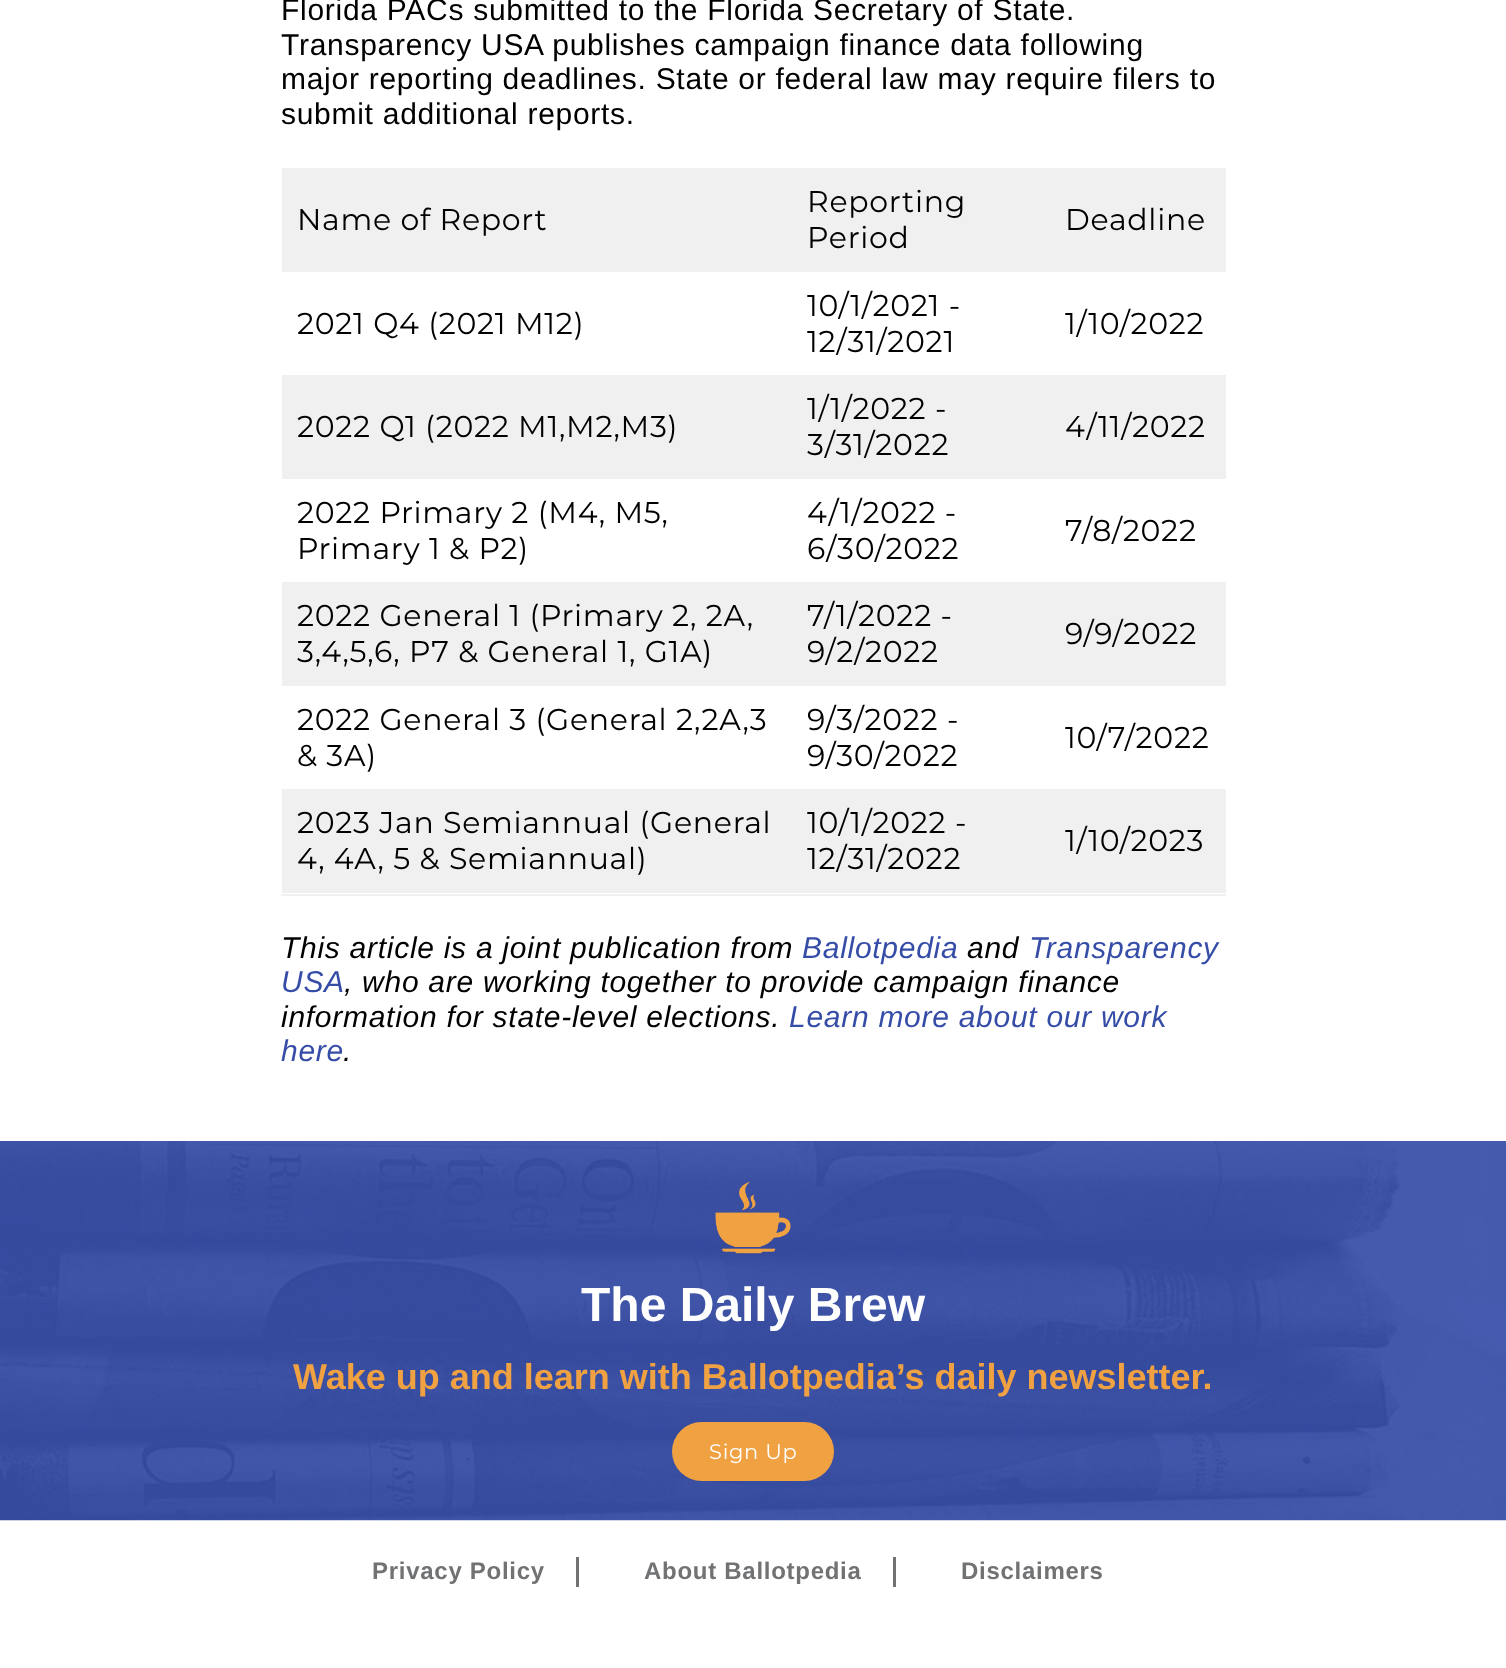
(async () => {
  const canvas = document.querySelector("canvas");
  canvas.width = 1506;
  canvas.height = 1668;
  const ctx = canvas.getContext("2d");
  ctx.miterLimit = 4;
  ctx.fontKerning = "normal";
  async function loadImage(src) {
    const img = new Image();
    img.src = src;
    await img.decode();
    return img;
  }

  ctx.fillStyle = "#ffffff";
  ctx.fillRect(0, 0, 1506, 1668);
  for (const [x, y, w, h, color] of [
    [281, 894, 945, 2, "#f0f0f0"],
    [282, 168, 944, 104, "#f0f0f0"],
    [282, 375, 944, 104, "#f0f0f0"],
    [282, 582, 944, 104, "#f0f0f0"],
    [282, 789, 944, 104, "#f0f0f0"],
  ]) {
    ctx.fillStyle = color;
    ctx.fillRect(x, y, w, h);
  }
  ctx.drawImage(await loadImage("img/1.png"), 0, 1141, 1506, 380);
  ctx.drawImage(await loadImage("img/2.png"), 715, 1182, 76, 72);
  ctx.fillStyle = "#f0a142";
  ctx.beginPath();
  ctx.roundRect(672, 1422, 162, 59, 29.5);
  ctx.fill();
  ctx.fillStyle = "#717274";
  ctx.fillRect(576, 1557, 3, 30);
  ctx.fillRect(893, 1557, 3, 30);
  ctx.letterSpacing = "0.72px";
  ctx.font = "30px Liberation Sans";
  ctx.fillStyle = "#000000";
  for (const [text, x, y] of [
    ["Florida PACs submitted to the Florida Secretary of State.", 281, 20],
    ["Transparency USA publishes campaign finance data following", 281, 55],
    ["major reporting deadlines. State or federal law may require filers to", 281, 89],
    ["submit additional reports.", 281, 124],
  ]) {
    ctx.fillText(text, x, y);
  }
  ctx.font = "30px Montserrat";
  for (const [text, x, y] of [
    ["Name of Report", 297, 230],
    ["Reporting", 807, 212],
    ["Period", 807, 248],
    ["Deadline", 1065, 230],
    ["2021 Q4 (2021 M12)", 297, 334],
    ["10/1/2021 -", 807, 316],
    ["12/31/2021", 807, 352],
    ["1/10/2022", 1065, 334],
    ["2022 Q1 (2022 M1,M2,M3)", 297, 437],
    ["1/1/2022 -", 807, 419],
    ["3/31/2022", 807, 455],
    ["4/11/2022", 1065, 437],
    ["2022 Primary 2 (M4, M5,", 297, 523],
    ["Primary 1 & P2)", 297, 559],
    ["4/1/2022 -", 807, 523],
    ["6/30/2022", 807, 559],
    ["7/8/2022", 1065, 541],
    ["2022 General 1 (Primary 2, 2A,", 297, 626],
    ["3,4,5,6, P7 & General 1, G1A)", 297, 662],
    ["7/1/2022 -", 807, 626],
    ["9/2/2022", 807, 662],
    ["9/9/2022", 1065, 644],
    ["2022 General 3 (General 2,2A,3", 297, 730],
    ["& 3A)", 297, 766],
    ["9/3/2022 -", 807, 730],
    ["9/30/2022", 807, 766],
    ["10/7/2022", 1065, 748],
    ["2023 Jan Semiannual (General", 297, 833],
    ["4, 4A, 5 & Semiannual)", 297, 869],
    ["10/1/2022 -", 807, 833],
    ["12/31/2022", 807, 869],
    ["1/10/2023", 1065, 851],
  ]) {
    ctx.fillText(text, x, y);
  }
  ctx.font = "italic 30px Liberation Sans";
  ctx.fillText("This article is a joint publication from", 281, 958);
  ctx.fillStyle = "#364da8";
  ctx.fillText("Ballotpedia", 802, 958);
  ctx.fillStyle = "#000000";
  ctx.fillText("and", 967, 958);
  ctx.fillStyle = "#364da8";
  ctx.fillText("Transparency", 1029, 958);
  ctx.fillText("USA", 281, 992);
  ctx.fillStyle = "#000000";
  ctx.fillText(", who are working together to provide campaign finance", 344, 992);
  ctx.fillText("information for state-level elections.", 281, 1027);
  ctx.fillStyle = "#364da8";
  ctx.fillText("Learn more about our work", 789, 1027);
  ctx.fillText("here", 281, 1061);
  ctx.fillStyle = "#000000";
  ctx.fillText(".", 343, 1061);
  ctx.letterSpacing = "0px";
  ctx.font = "bold 48px Liberation Sans";
  ctx.fillStyle = "#ffffff";
  ctx.fillText("The Daily Brew", 581, 1321);
  ctx.font = "bold 36px Liberation Sans";
  ctx.fillStyle = "#f0a142";
  ctx.fillText("Wake up and learn with Ballotpedia’s daily newsletter.", 293, 1389);
  ctx.letterSpacing = "0.72px";
  ctx.font = "21px Montserrat";
  ctx.fillStyle = "#ffffff";
  ctx.fillText("Sign Up", 709, 1459);
  ctx.font = "bold 24px Liberation Sans";
  ctx.fillStyle = "#717274";
  for (const [text, x, y] of [
    ["Privacy Policy", 372, 1579],
    ["About Ballotpedia", 644, 1579],
    ["Disclaimers", 961, 1579],
  ]) {
    ctx.fillText(text, x, y);
  }
})();
